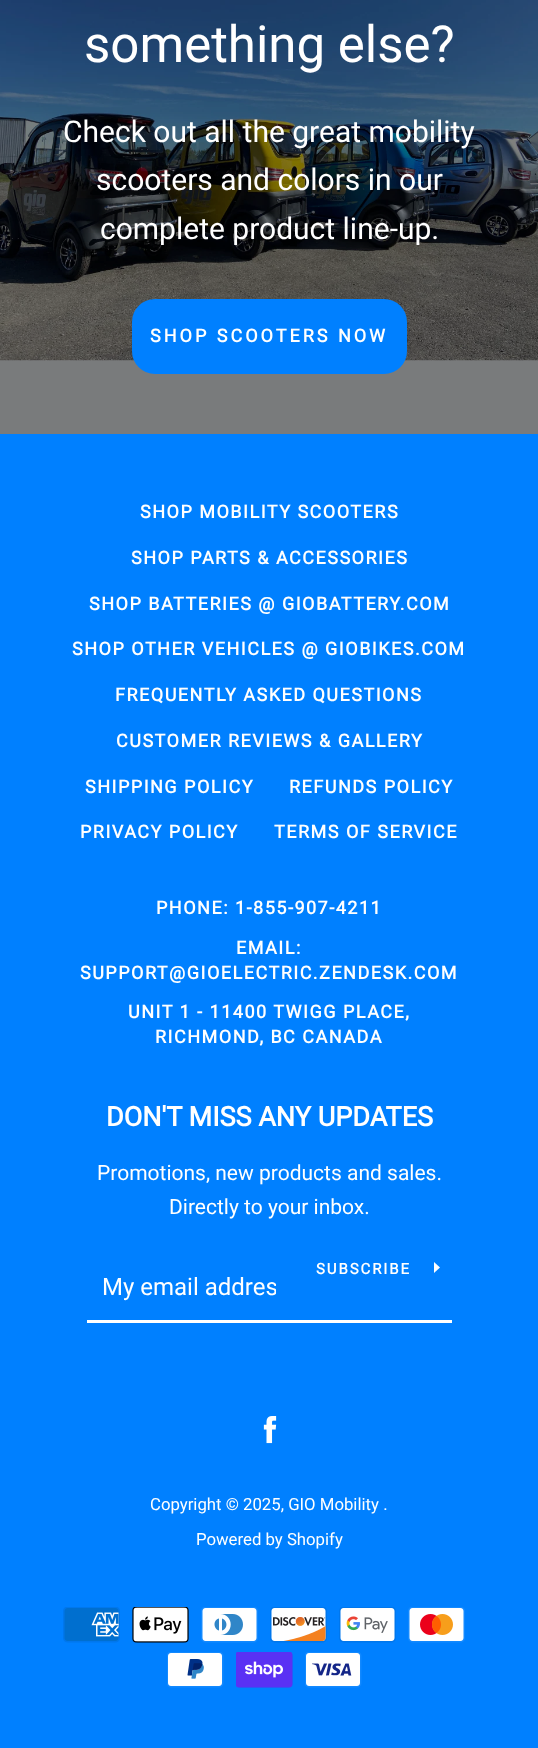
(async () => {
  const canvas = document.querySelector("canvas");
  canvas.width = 538;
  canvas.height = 1748;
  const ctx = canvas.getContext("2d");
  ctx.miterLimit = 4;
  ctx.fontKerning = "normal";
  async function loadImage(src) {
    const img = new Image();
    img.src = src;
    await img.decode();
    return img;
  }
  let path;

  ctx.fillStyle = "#797b7c";
  ctx.fillRect(0, 0, 538, 1748);
  ctx.drawImage(await loadImage("img/1.png"), 0, 0, 538, 361);
  ctx.fillStyle = "#0080ff";
  ctx.beginPath();
  ctx.roundRect(133.5, 300.5, 272, 72, 21.5);
  ctx.fill();
  ctx.strokeStyle = "#0080ff";
  ctx.lineWidth = 3;
  ctx.stroke();
  ctx.fillRect(0, 434, 538, 1314);
  ctx.fillStyle = "#ffffff";
  ctx.fillRect(87, 1320, 365, 3);
  path = new Path2D("M440 1267.5L434 1273V1262Z");
  ctx.fill(path);
  ctx.drawImage(await loadImage("img/2.png"), 263, 1416, 14, 28);
  ctx.drawImage(await loadImage("img/3.png"), 63, 1607, 57, 36);
  ctx.drawImage(await loadImage("img/4.png"), 132, 1607, 57, 36);
  ctx.drawImage(await loadImage("img/5.png"), 201, 1607, 57, 36);
  ctx.drawImage(await loadImage("img/6.png"), 270, 1607, 57, 36);
  ctx.drawImage(await loadImage("img/7.png"), 339, 1607, 57, 36);
  ctx.drawImage(await loadImage("img/8.png"), 408, 1607, 57, 36);
  ctx.drawImage(await loadImage("img/9.png"), 167, 1652, 57, 36);
  ctx.drawImage(await loadImage("img/10.png"), 236, 1652, 57, 36);
  ctx.drawImage(await loadImage("img/11.png"), 305, 1652, 57, 36);
  ctx.font = "51px Roboto";
  ctx.fillText("something else?", 84, 62);
  ctx.font = "30px Roboto";
  for (const [text, x, y] of [
    ["Check out all the great mobility", 63, 142],
    ["scooters and colors in our", 96, 190],
    ["complete product line-up.", 100, 239],
  ]) {
    ctx.fillText(text, x, y);
  }
  ctx.letterSpacing = "3px";
  ctx.font = "bold 18px Roboto";
  ctx.fillText("SHOP SCOOTERS NOW", 150, 342);
  ctx.letterSpacing = "1.5px";
  for (const [text, x, y] of [
    ["SHOP MOBILITY SCOOTERS", 140, 518],
    ["SHOP PARTS & ACCESSORIES", 131, 564],
    ["SHOP BATTERIES @ GIOBATTERY.COM", 89, 610],
    ["SHOP OTHER VEHICLES @ GIOBIKES.COM", 72, 655],
    ["FREQUENTLY ASKED QUESTIONS", 115, 701],
    ["CUSTOMER REVIEWS & GALLERY", 116, 747],
    ["SHIPPING POLICY", 85, 793],
    ["REFUNDS POLICY", 289, 793],
    ["PRIVACY POLICY", 80, 838],
    ["TERMS OF SERVICE", 274, 838],
    ["PHONE: 1-855-907-4211", 156, 914],
    ["EMAIL:", 236, 954],
    ["SUPPORT@GIOELECTRIC.ZENDESK.COM", 80, 979],
    ["UNIT 1 - 11400 TWIGG PLACE,", 128, 1018],
    ["RICHMOND, BC CANADA", 155, 1043],
  ]) {
    ctx.fillText(text, x, y);
  }
  ctx.letterSpacing = "0px";
  ctx.font = "bold 27px Roboto";
  ctx.fillText("DON'T MISS ANY UPDATES", 106, 1126);
  ctx.font = "21px Roboto";
  ctx.fillText("Promotions, new products and sales.", 97, 1180);
  ctx.fillText("Directly to your inbox.", 169, 1214);
  ctx.letterSpacing = "1.9px";
  ctx.font = "bold 15px Roboto";
  ctx.fillText("SUBSCRIBE", 316, 1274);
  ctx.save();
  ctx.beginPath();
  ctx.rect(102, 1272, 174, 29);
  ctx.clip();
  ctx.letterSpacing = "0px";
  ctx.font = "24px Roboto";
  ctx.fillText("My email addres", 102, 1295);
  ctx.restore();
  ctx.letterSpacing = "0px";
  ctx.font = "16.75px Roboto";
  ctx.fillText("Copyright © 2025, GIO Mobility .", 150, 1510);
  ctx.fillText("Powered by Shopify", 196, 1545);
})();
